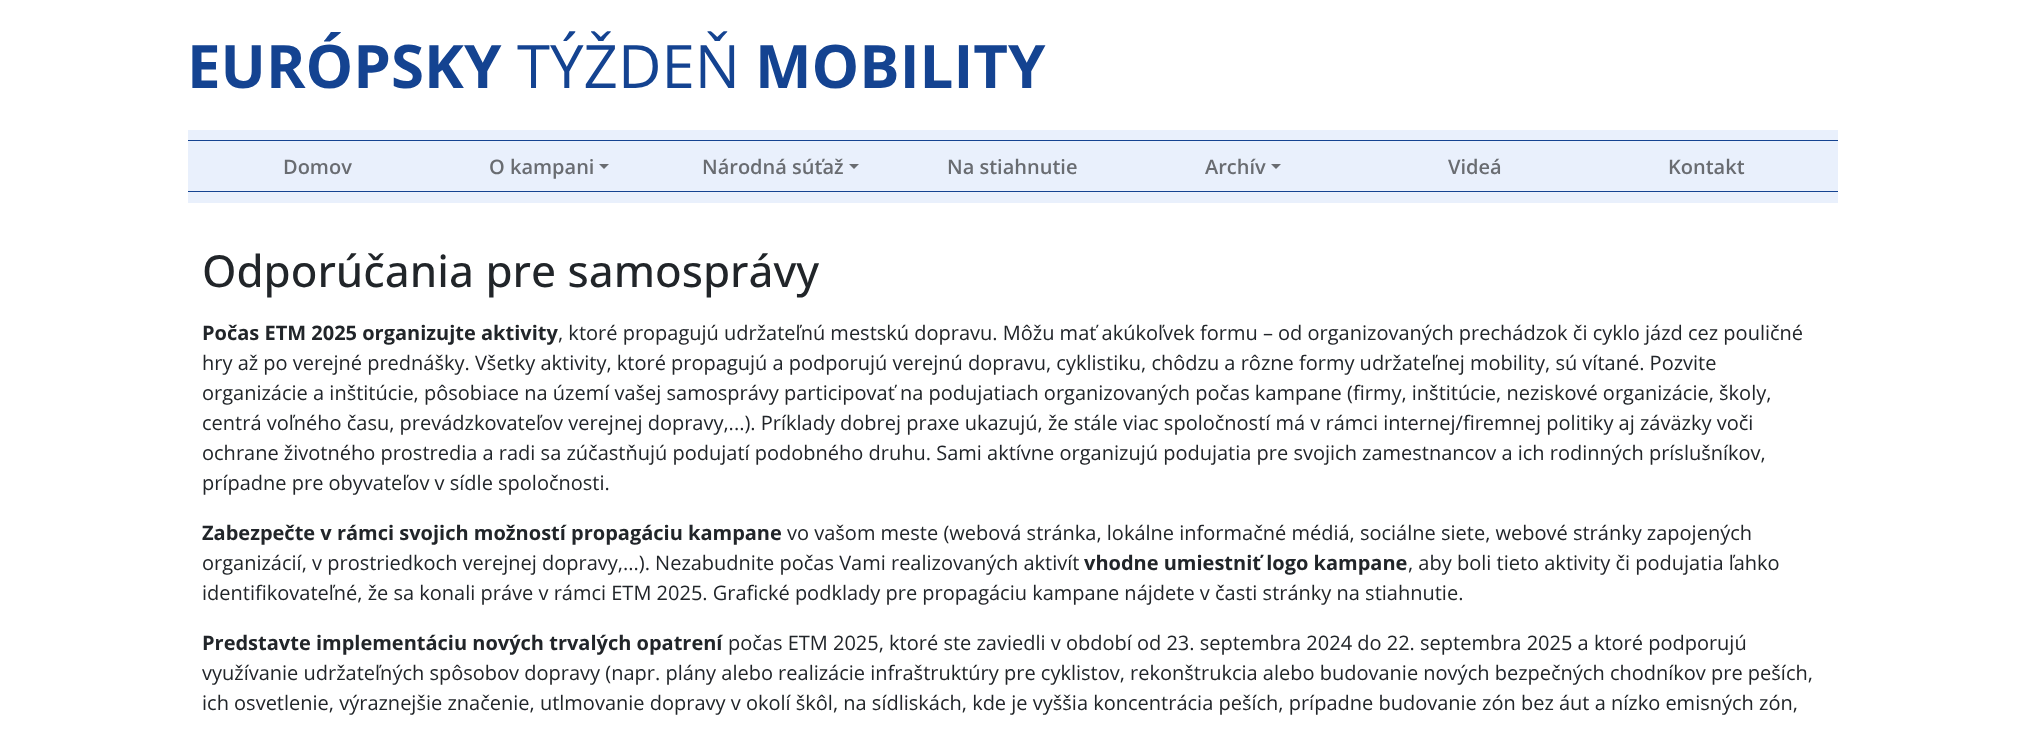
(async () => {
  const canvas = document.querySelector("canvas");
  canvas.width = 2023;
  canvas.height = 736;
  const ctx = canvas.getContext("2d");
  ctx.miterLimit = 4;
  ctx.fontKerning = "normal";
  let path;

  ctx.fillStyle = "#ffffff";
  ctx.fillRect(0, 0, 2023, 736);
  for (const [x, y, w, h, color] of [
    [188, 130, 1650, 73, "#e9f0fc"],
    [188, 140, 1650, 1, "#144391"],
    [188, 191, 1650, 1, "#144391"],
  ]) {
    ctx.fillStyle = color;
    ctx.fillRect(x, y, w, h);
  }
  ctx.fillStyle = "#696c71";
  path = new Path2D("M599 164H609L604 169Z");
  ctx.fill(path);
  path = new Path2D("M849 164H859L854 169Z");
  ctx.fill(path);
  path = new Path2D("M1271 164H1281L1276 169Z");
  ctx.fill(path);
  ctx.font = "bold 60px Open Sans";
  ctx.fillStyle = "#144391";
  ctx.fillText("EURÓPSKY", 187, 88);
  ctx.font = "60px Open Sans";
  ctx.fillText("TÝŽDEŇ", 517, 88);
  ctx.font = "bold 60px Open Sans";
  ctx.fillText("MOBILITY", 755, 88);
  ctx.font = "600 20px Open Sans";
  ctx.fillStyle = "#696c71";
  for (const [text, x, y] of [
    ["Domov", 283, 174],
    ["O kampani", 489, 174],
    ["Národná súťaž", 702, 174],
    ["Na stiahnutie", 947, 174],
    ["Archív", 1205, 174],
    ["Videá", 1448, 174],
    ["Kontakt", 1668, 174],
  ]) {
    ctx.fillText(text, x, y);
  }
  ctx.font = "500 44px Open Sans";
  ctx.fillStyle = "#212529";
  ctx.fillText("Odporúčania pre samosprávy", 202, 287);
  ctx.font = "bold 20px Open Sans";
  ctx.fillText("Počas ETM 2025 organizujte aktivity", 202, 340);
  ctx.font = "20px Open Sans";
  for (const [text, x, y] of [
    [", ktoré propagujú udržateľnú mestskú dopravu. Môžu mať akúkoľvek formu – od organizovaných prechádzok či cyklo jázd cez pouličné", 558, 340],
    ["hry až po verejné prednášky. Všetky aktivity, ktoré propagujú a podporujú verejnú dopravu, cyklistiku, chôdzu a rôzne formy udržateľnej mobility, sú vítané. Pozvite", 202, 370],
    ["organizácie a inštitúcie, pôsobiace na území vašej samosprávy participovať na podujatiach organizovaných počas kampane (firmy, inštitúcie, neziskové organizácie, školy,", 202, 400],
    ["centrá voľného času, prevádzkovateľov verejnej dopravy,...). Príklady dobrej praxe ukazujú, že stále viac spoločností má v rámci internej/firemnej politiky aj záväzky voči", 202, 430],
    ["ochrane životného prostredia a radi sa zúčastňujú podujatí podobného druhu. Sami aktívne organizujú podujatia pre svojich zamestnancov a ich rodinných príslušníkov,", 202, 460],
    ["prípadne pre obyvateľov v sídle spoločnosti.", 202, 490],
  ]) {
    ctx.fillText(text, x, y);
  }
  ctx.font = "bold 20px Open Sans";
  ctx.fillText("Zabezpečte v rámci svojich možností propagáciu kampane", 202, 540);
  ctx.font = "20px Open Sans";
  ctx.fillText("vo vašom meste (webová stránka, lokálne informačné médiá, sociálne siete, webové stránky zapojených", 787, 540);
  ctx.fillText("organizácií, v prostriedkoch verejnej dopravy,...). Nezabudnite počas Vami realizovaných aktivít", 202, 570);
  ctx.font = "bold 20px Open Sans";
  ctx.fillText("vhodne umiestniť logo kampane", 1084, 570);
  ctx.font = "20px Open Sans";
  ctx.fillText(", aby boli tieto aktivity či podujatia ľahko", 1408, 570);
  ctx.fillText("identifikovateľné, že sa konali práve v rámci ETM 2025. Grafické podklady pre propagáciu kampane nájdete v časti stránky na stiahnutie.", 202, 600);
  ctx.font = "bold 20px Open Sans";
  ctx.fillText("Predstavte implementáciu nových trvalých opatrení", 202, 650);
  ctx.font = "20px Open Sans";
  for (const [text, x, y] of [
    ["počas ETM 2025, ktoré ste zaviedli v období od 23. septembra 2024 do 22. septembra 2025 a ktoré podporujú", 728, 650],
    ["využívanie udržateľných spôsobov dopravy (napr. plány alebo realizácie infraštruktúry pre cyklistov, rekonštrukcia alebo budovanie nových bezpečných chodníkov pre peších,", 202, 680],
    ["ich osvetlenie, výraznejšie značenie, utlmovanie dopravy v okolí škôl, na sídliskách, kde je vyššia koncentrácia peších, prípadne budovanie zón bez áut a nízko emisných zón,", 202, 710],
  ]) {
    ctx.fillText(text, x, y);
  }
})();
